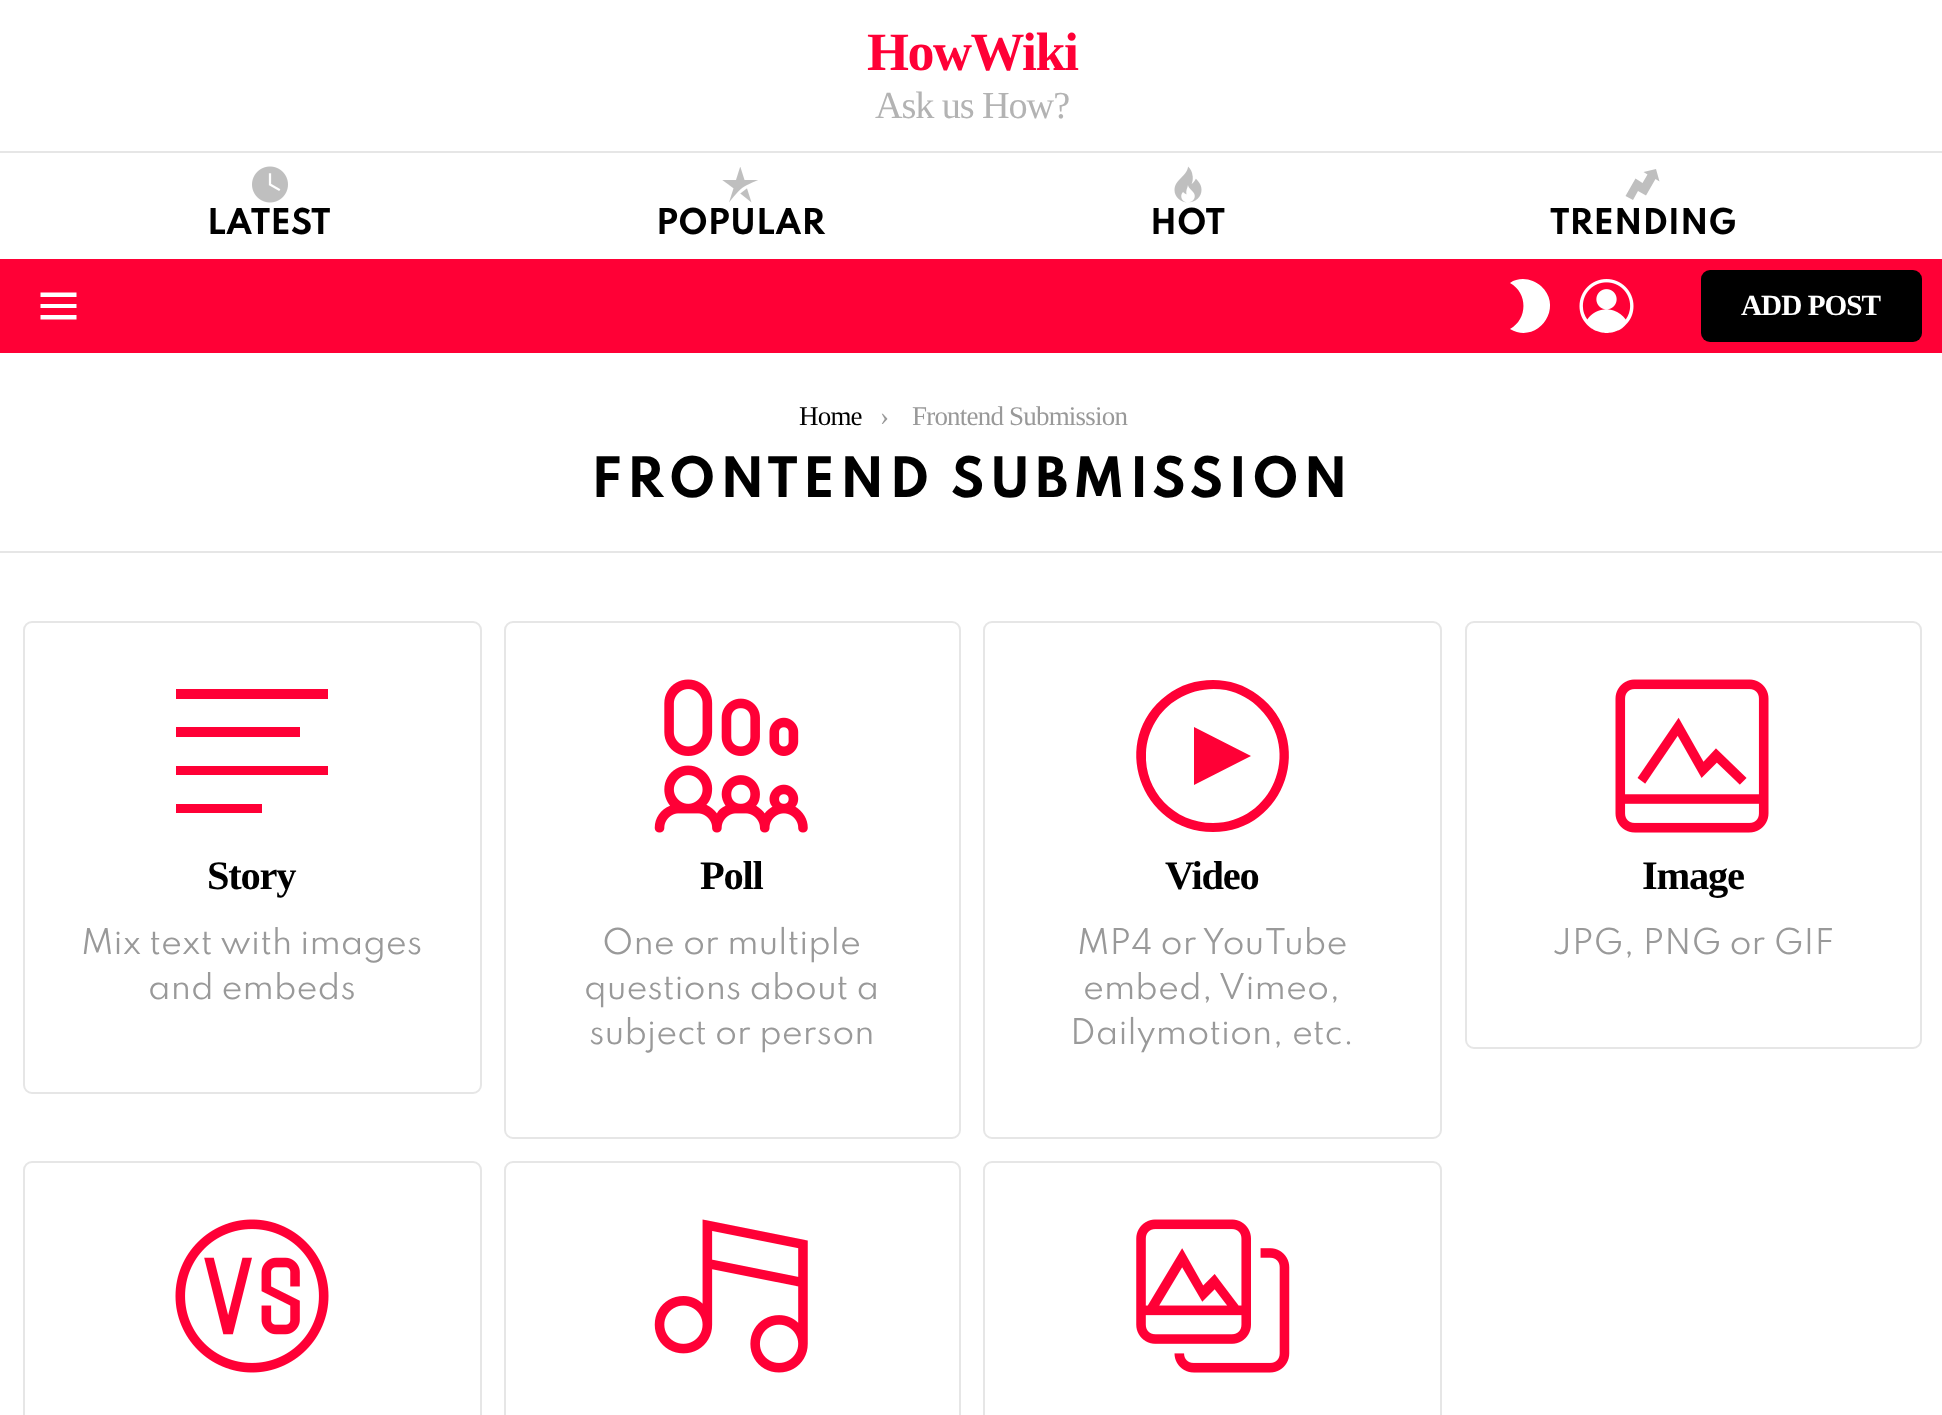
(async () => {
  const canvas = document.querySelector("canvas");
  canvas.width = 1942;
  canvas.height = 1415;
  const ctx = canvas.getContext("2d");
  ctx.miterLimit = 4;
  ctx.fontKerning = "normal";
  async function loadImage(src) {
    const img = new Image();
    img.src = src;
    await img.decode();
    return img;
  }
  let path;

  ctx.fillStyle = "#ffffff";
  ctx.fillRect(0, 0, 1942, 1415);
  ctx.fillStyle = "#e6e6e6";
  ctx.fillRect(0, 151, 1942, 2);
  ctx.drawImage(await loadImage("img/1.png"), 252, 166, 36, 37);
  ctx.drawImage(await loadImage("img/2.png"), 722, 167, 36, 36);
  ctx.drawImage(await loadImage("img/3.png"), 1174, 166, 28, 37);
  ctx.fillStyle = "#bfbfbf";
  path = new Path2D("M1642.5 183L1647.5 174.5L1643.5 172L1656 169L1659.5 181.5L1655.5 179L1646 195.5L1638 191L1633 200L1625.5 196L1635.5 178.5Z");
  ctx.fill(path);
  ctx.fillStyle = "#ff0036";
  ctx.fillRect(0, 259, 1942, 94);
  ctx.fillStyle = "#ffffff";
  path = new Path2D("M40.5 292.5H76.5V297H40.5ZM40.5 304H76.5V308H40.5ZM40.5 315H76.5V319.5H40.5Z");
  ctx.fill(path);
  path = new Path2D("M1523 279C1518 279 1514 280 1510 283C1528 293 1528 319 1510 329C1537 345 1565 308 1541 286C1536 282 1530 279 1523 279Z");
  ctx.fill(path);
  ctx.drawImage(await loadImage("img/4.png"), 1579, 279, 55, 54);
  ctx.fillStyle = "#000000";
  ctx.beginPath();
  ctx.roundRect(1701, 270, 221, 72, 9);
  ctx.fill();
  ctx.fillStyle = "#e6e6e6";
  ctx.fillRect(0, 551, 1942, 2);
  ctx.beginPath();
  ctx.roundRect(24, 622, 457, 471, 8);
  ctx.strokeStyle = "#e6e6e6";
  ctx.lineWidth = 2;
  ctx.stroke();
  ctx.fillStyle = "#ff0036";
  path = new Path2D("M328 689V699H176V689ZM300 727H176V737H300ZM176 775H328V766H176ZM176 813H262V804H176Z");
  ctx.fill(path);
  ctx.beginPath();
  ctx.roundRect(505, 622, 455, 516, 8);
  ctx.stroke();
  ctx.drawImage(await loadImage("img/5.png"), 654, 679, 154, 154);
  ctx.beginPath();
  ctx.roundRect(984, 622, 457, 516, 8);
  ctx.stroke();
  path = new Path2D("M1251 756L1194 727V785ZM1213 680C1196 680 1180 685 1167 695C1108 739 1140 832 1213 832C1286 832 1317 739 1258 695C1245 685 1229 680 1213 680ZM1213 823C1174 823 1144 791 1146 753C1147 731 1159 710 1178 699C1192 690 1210 687 1226 690C1239 693 1251 699 1260 709C1302 751 1272 823 1213 823Z");
  ctx.fill(path);
  ctx.beginPath();
  ctx.roundRect(1466, 622, 455, 426, 8);
  ctx.stroke();
  ctx.drawImage(await loadImage("img/6.png"), 1615, 679, 154, 154);
  ctx.beginPath();
  ctx.roundRect(24, 1162, 457, 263, 8);
  ctx.stroke();
  ctx.drawImage(await loadImage("img/7.png"), 175, 1219, 154, 154);
  ctx.beginPath();
  ctx.roundRect(505, 1162, 455, 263, 8);
  ctx.stroke();
  ctx.drawImage(await loadImage("img/8.png"), 654, 1219, 154, 154);
  ctx.beginPath();
  ctx.roundRect(984, 1162, 457, 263, 8);
  ctx.stroke();
  ctx.drawImage(await loadImage("img/9.png"), 1136, 1219, 154, 154);
  ctx.letterSpacing = "-1.5px";
  ctx.font = "bold 54px Liberation Serif";
  ctx.fillText("HowWiki", 867, 70);
  ctx.letterSpacing = "-1.1px";
  ctx.font = "38.25px Liberation Serif";
  ctx.fillStyle = "#b3b3b3";
  ctx.fillText("Ask us How?", 875, 118);
  ctx.letterSpacing = "0px";
  ctx.font = "bold 31.5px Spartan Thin";
  ctx.fillStyle = "#000000";
  for (const [text, x, y] of [
    ["LATEST", 207, 234],
    ["POPULAR", 656, 234],
    ["HOT", 1150, 234],
    ["TRENDING", 1550, 234],
  ]) {
    ctx.fillText(text, x, y);
  }
  ctx.letterSpacing = "-1px";
  ctx.font = "bold 29.25px Liberation Serif";
  ctx.fillStyle = "#ffffff";
  ctx.fillText("ADD POST", 1741, 315);
  ctx.letterSpacing = "-0.8px";
  ctx.font = "27px Liberation Serif";
  ctx.fillStyle = "#000000";
  ctx.fillText("Home", 799, 425);
  ctx.fillStyle = "#999999";
  ctx.fillText("›", 880, 425);
  ctx.fillText("Frontend Submission", 912, 425);
  ctx.letterSpacing = "4.75px";
  ctx.font = "bold 49.5px Spartan Thin";
  ctx.fillStyle = "#000000";
  ctx.fillText("FRONTEND SUBMISSION", 591, 497);
  ctx.letterSpacing = "-1.25px";
  ctx.font = "bold 40.5px Liberation Serif";
  ctx.fillText("Story", 207, 889);
  ctx.letterSpacing = "0px";
  ctx.font = "31.5px Spartan Thin";
  ctx.fillStyle = "#999999";
  ctx.fillText("Mix text with images", 81, 954);
  ctx.fillText("and embeds", 148, 999);
  ctx.letterSpacing = "-1.25px";
  ctx.font = "bold 40.5px Liberation Serif";
  ctx.fillStyle = "#000000";
  ctx.fillText("Poll", 700, 889);
  ctx.letterSpacing = "0px";
  ctx.font = "31.5px Spartan Thin";
  ctx.fillStyle = "#999999";
  for (const [text, x, y] of [
    ["One or multiple", 602, 954],
    ["questions about a", 584, 999],
    ["subject or person", 589, 1044],
  ]) {
    ctx.fillText(text, x, y);
  }
  ctx.letterSpacing = "-1.25px";
  ctx.font = "bold 40.5px Liberation Serif";
  ctx.fillStyle = "#000000";
  ctx.fillText("Video", 1165, 889);
  ctx.letterSpacing = "0px";
  ctx.font = "31.5px Spartan Thin";
  ctx.fillStyle = "#999999";
  for (const [text, x, y] of [
    ["MP4 or YouTube", 1077, 954],
    ["embed, Vimeo,", 1083, 999],
    ["Dailymotion, etc.", 1070, 1044],
  ]) {
    ctx.fillText(text, x, y);
  }
  ctx.letterSpacing = "-1.25px";
  ctx.font = "bold 40.5px Liberation Serif";
  ctx.fillStyle = "#000000";
  ctx.fillText("Image", 1642, 889);
  ctx.letterSpacing = "0px";
  ctx.font = "31.5px Spartan Thin";
  ctx.fillStyle = "#999999";
  ctx.fillText("JPG, PNG or GIF", 1552, 954);
})();
